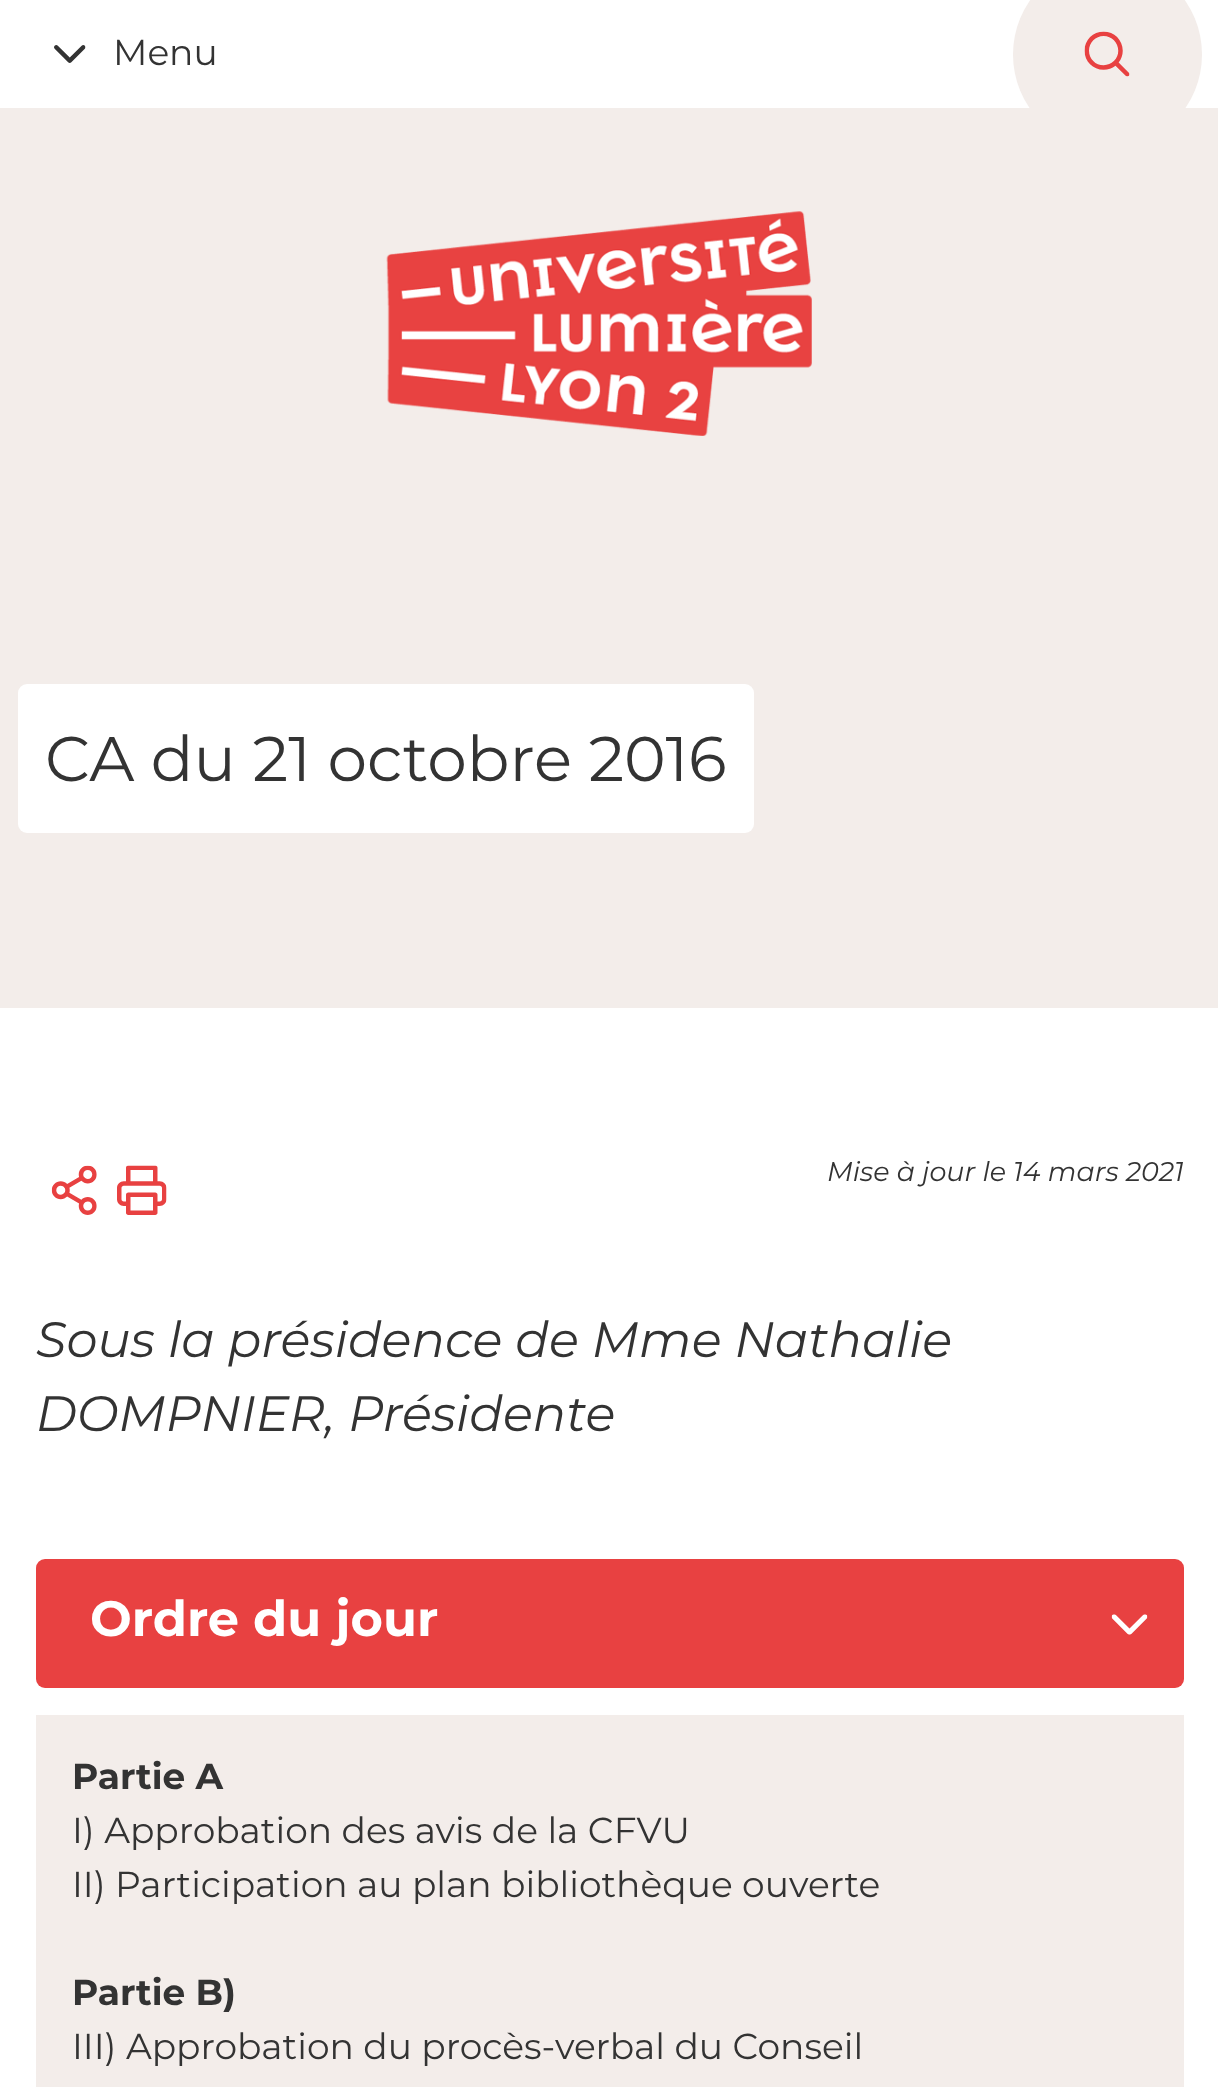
(async () => {
  const canvas = document.querySelector("canvas");
  canvas.width = 1218;
  canvas.height = 2087;
  const ctx = canvas.getContext("2d");
  ctx.miterLimit = 4;
  ctx.fontKerning = "normal";
  async function loadImage(src) {
    const img = new Image();
    img.src = src;
    await img.decode();
    return img;
  }

  ctx.fillStyle = "#ffffff";
  ctx.fillRect(0, 0, 1218, 2087);
  ctx.drawImage(await loadImage("img/1.png"), 54, 45, 32, 18);
  ctx.fillStyle = "#f3edea";
  ctx.fillRect(0, 108, 1218, 900);
  ctx.save();
  ctx.beginPath();
  ctx.rect(995, 0, 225, 108);
  ctx.clip();
  ctx.beginPath();
  ctx.arc(1107.5, 54.5, 94.5, 0, Math.PI * 2);
  ctx.fill();
  ctx.restore();
  ctx.drawImage(await loadImage("img/2.png"), 1084, 31, 46, 46);
  ctx.drawImage(await loadImage("img/3.png"), 386, 211, 426, 225);
  ctx.fillStyle = "#ffffff";
  ctx.beginPath();
  ctx.roundRect(18, 684, 736, 149, 9);
  ctx.fill();
  ctx.drawImage(await loadImage("img/4.png"), 51, 1165, 46, 50);
  ctx.drawImage(await loadImage("img/5.png"), 117, 1165, 50, 50);
  ctx.fillStyle = "#e84141";
  ctx.beginPath();
  ctx.roundRect(36, 1559, 1148, 129, 9);
  ctx.fill();
  ctx.drawImage(await loadImage("img/6.png"), 1111, 1614, 37, 21);
  ctx.fillStyle = "#f3edea";
  ctx.fillRect(36, 1715, 1148, 372);
  ctx.font = "36px Montserrat";
  ctx.fillStyle = "#333333";
  ctx.fillText("Menu", 113, 65);
  ctx.font = "63px Montserrat";
  ctx.fillText("CA du 21 octobre 2016", 45, 781);
  ctx.font = "italic 27px Montserrat";
  ctx.fillText("Mise à jour le 14 mars 2021", 827, 1181);
  ctx.font = "italic 49.5px Montserrat";
  ctx.fillText("Sous la présidence de Mme Nathalie", 36, 1357);
  ctx.fillText("DOMPNIER, Présidente", 36, 1431);
  ctx.font = "bold 49.5px Montserrat";
  ctx.fillStyle = "#ffffff";
  ctx.fillText("Ordre du jour", 90, 1636);
  ctx.font = "bold 36px Montserrat";
  ctx.fillStyle = "#333333";
  ctx.fillText("Partie A", 72, 1789);
  ctx.font = "36px Montserrat";
  ctx.fillText("I) Approbation des avis de la CFVU", 72, 1843);
  ctx.fillText("II) Participation au plan bibliothèque ouverte", 72, 1897);
  ctx.font = "bold 36px Montserrat";
  ctx.fillText("Partie B)", 72, 2005);
  ctx.font = "36px Montserrat";
  ctx.fillText("III) Approbation du procès-verbal du Conseil", 72, 2059);
})();
